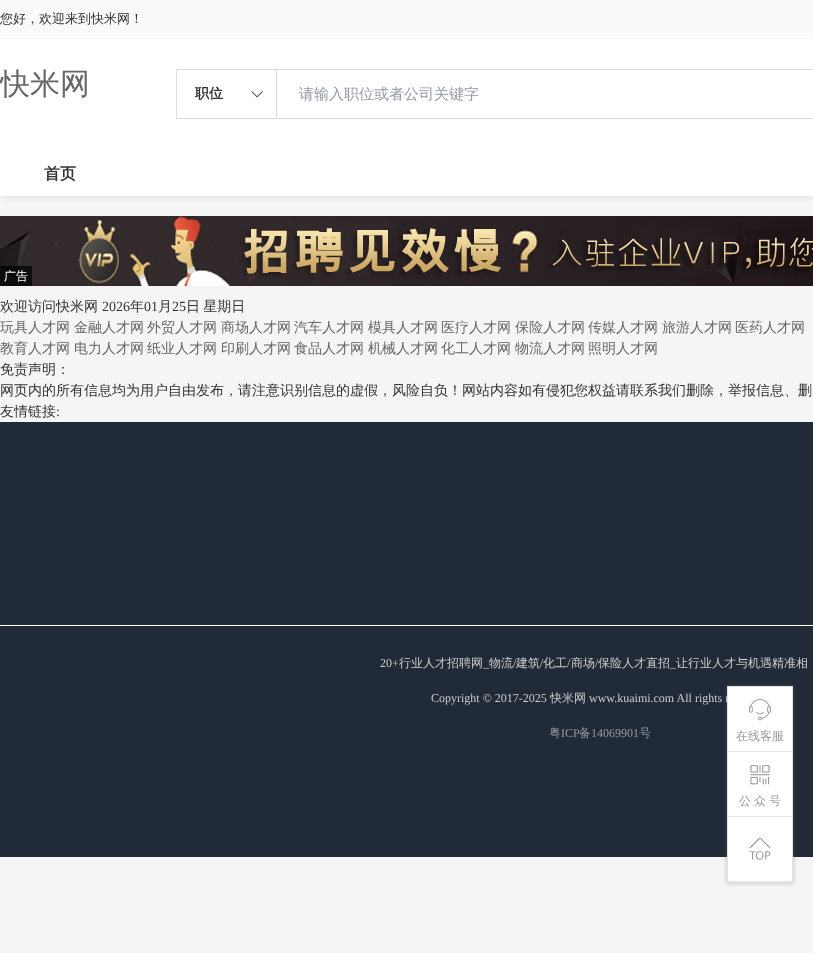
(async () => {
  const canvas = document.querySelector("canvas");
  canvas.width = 813;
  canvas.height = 953;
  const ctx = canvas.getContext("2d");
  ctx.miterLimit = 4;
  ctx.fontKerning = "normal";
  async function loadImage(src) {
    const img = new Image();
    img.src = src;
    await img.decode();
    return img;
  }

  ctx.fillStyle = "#f5f5f5";
  ctx.fillRect(0, 0, 813, 953);
  ctx.fillStyle = "#dddddd";
  ctx.filter = "blur(4px)";
  ctx.beginPath();
  ctx.rect(0, 0, 813, 196);
  ctx.fill();
  ctx.filter = "none";
  ctx.fillStyle = "#ffffff";
  ctx.fillRect(0, 39, 813, 157);
  ctx.fillStyle = "#fafafa";
  ctx.fillRect(0, 0, 813, 39);
  ctx.strokeStyle = "#dddddd";
  ctx.strokeRect(176.5, 69.5, 100, 49);
  ctx.drawImage(await loadImage("img/1.png"), 251, 91, 12, 7);
  for (const [x, y, w, h, color] of [
    [277, 69, 536, 1, "#dddddd"],
    [277, 118, 536, 1, "#dddddd"],
    [0, 422, 813, 435, "#212b37"],
  ]) {
    ctx.fillStyle = color;
    ctx.fillRect(x, y, w, h);
  }
  ctx.fillStyle = "rgba(110, 110, 110, 0.4)";
  ctx.filter = "blur(2.5px)";
  ctx.beginPath();
  ctx.rect(727, 686, 66, 197);
  ctx.fill();
  ctx.filter = "none";
  ctx.drawImage(await loadImage("img/5.png"), 0, 216, 813, 70);
  ctx.fillStyle = "rgba(0, 0, 0, 0.7)";
  ctx.fillRect(0, 266, 32, 20);
  ctx.fillStyle = "#ffffff";
  ctx.fillRect(0, 625, 813, 1);
  ctx.font = "500 13px WenQuanYi Zen Hei";
  ctx.fillStyle = "#333333";
  ctx.fillText("您好，欢迎来到快米网！", 0, 23);
  ctx.font = "500 30px WenQuanYi Zen Hei";
  ctx.fillStyle = "#666666";
  ctx.fillText("快米网", 0, 94);
  ctx.font = "bold 14px WenQuanYi Zen Hei";
  ctx.fillStyle = "#333333";
  ctx.fillText("职位", 195, 98);
  ctx.font = "500 15px WenQuanYi Zen Hei";
  ctx.fillStyle = "#9399a5";
  ctx.fillText("请输入职位或者公司关键字", 299, 99);
  ctx.font = "bold 16px WenQuanYi Zen Hei";
  ctx.fillStyle = "#333333";
  ctx.fillText("首页", 44, 179);
  ctx.font = "500 12px WenQuanYi Zen Hei";
  ctx.fillStyle = "#ffffff";
  ctx.fillText("广告", 4, 280);
  ctx.font = "500 14px WenQuanYi Zen Hei";
  ctx.fillStyle = "#333333";
  ctx.fillText("欢迎访问快米网", 0, 311);
  ctx.font = "14px Liberation Serif";
  ctx.fillText("2026", 102, 311);
  ctx.font = "500 14px WenQuanYi Zen Hei";
  ctx.fillText("年", 130, 311);
  ctx.font = "14px Liberation Serif";
  ctx.fillText("01", 144, 311);
  ctx.font = "500 14px WenQuanYi Zen Hei";
  ctx.fillText("月", 158, 311);
  ctx.font = "14px Liberation Serif";
  ctx.fillText("25", 172, 311);
  ctx.wordSpacing = "-1px";
  ctx.font = "500 14px WenQuanYi Zen Hei";
  ctx.fillText("日 星期日", 186, 311);
  ctx.wordSpacing = "0px";
  ctx.fillStyle = "#666666";
  for (const [text, x, y] of [
    ["玩具人才网", 0, 332],
    ["金融人才网", 74, 332],
    ["外贸人才网", 147, 332],
    ["商场人才网", 221, 332],
    ["汽车人才网", 294, 332],
    ["模具人才网", 368, 332],
    ["医疗人才网", 441, 332],
    ["保险人才网", 515, 332],
    ["传媒人才网", 588, 332],
    ["旅游人才网", 662, 332],
    ["医药人才网", 735, 332],
    ["教育人才网", 0, 353],
    ["电力人才网", 74, 353],
    ["纸业人才网", 147, 353],
    ["印刷人才网", 221, 353],
    ["食品人才网", 294, 353],
    ["机械人才网", 368, 353],
    ["化工人才网", 441, 353],
    ["物流人才网", 515, 353],
    ["照明人才网", 588, 353],
  ]) {
    ctx.fillText(text, x, y);
  }
  ctx.fillStyle = "#333333";
  for (const [text, x, y] of [
    ["免责声明：", 0, 374],
    ["网页内的所有信息均为用户自由发布，请注意识别信息的虚假，风险自负！网站内容如有侵犯您权益请联系我们删除，举报信息、删", 0, 395],
    ["友情链接", 0, 416],
  ]) {
    ctx.fillText(text, x, y);
  }
  ctx.font = "14px Liberation Serif";
  ctx.fillText(":", 56, 416);
  ctx.font = "12px Liberation Serif";
  ctx.fillStyle = "#cccccc";
  ctx.fillText("20+", 380, 667);
  ctx.font = "500 12px WenQuanYi Zen Hei";
  ctx.fillText("行业人才招聘网", 399, 667);
  ctx.font = "12px Liberation Serif";
  ctx.fillText("_", 483, 667);
  ctx.font = "500 12px WenQuanYi Zen Hei";
  ctx.fillText("物流", 489, 667);
  ctx.font = "12px Liberation Serif";
  ctx.fillText("/", 513, 667);
  ctx.font = "500 12px WenQuanYi Zen Hei";
  ctx.fillText("建筑", 516, 667);
  ctx.font = "12px Liberation Serif";
  ctx.fillText("/", 540, 667);
  ctx.font = "500 12px WenQuanYi Zen Hei";
  ctx.fillText("化工", 543, 667);
  ctx.font = "12px Liberation Serif";
  ctx.fillText("/", 567, 667);
  ctx.font = "500 12px WenQuanYi Zen Hei";
  ctx.fillText("商场", 571, 667);
  ctx.font = "12px Liberation Serif";
  ctx.fillText("/", 595, 667);
  ctx.font = "500 12px WenQuanYi Zen Hei";
  ctx.fillText("保险人才直招", 598, 667);
  ctx.font = "12px Liberation Serif";
  ctx.fillText("_", 670, 667);
  ctx.font = "500 12px WenQuanYi Zen Hei";
  ctx.fillText("让行业人才与机遇精准相", 676, 667);
  ctx.font = "12px Liberation Serif";
  ctx.fillText("Copyright © 2017-2025", 431, 702);
  ctx.font = "500 12px WenQuanYi Zen Hei";
  ctx.fillText("快米网", 550, 702);
  ctx.font = "12px Liberation Serif";
  ctx.fillText("www.kuaimi.com All rights r", 589, 702);
  ctx.fillStyle = "#ffffff";
  ctx.fillRect(728, 687, 64, 194);
  ctx.strokeStyle = "#e0e1e5";
  ctx.strokeRect(727.5, 686.5, 65, 196);
  ctx.drawImage(await loadImage("img/4.png"), 749, 837, 22, 23);
  ctx.fillStyle = "#e8e8e8";
  ctx.fillRect(728, 881, 64, 1);
  ctx.font = "500 12px WenQuanYi Zen Hei";
  ctx.fillStyle = "#999999";
  for (const [text, x, y] of [
    ["号", 769, 805],
    ["众", 754, 805],
    ["公", 739, 805],
  ]) {
    ctx.fillText(text, x, y);
  }
  ctx.drawImage(await loadImage("img/3.png"), 750, 765, 20, 20);
  ctx.fillStyle = "#e8e8e8";
  ctx.fillRect(728, 816, 64, 1);
  ctx.fillStyle = "#999999";
  ctx.fillText("在线客服", 736, 740);
  ctx.drawImage(await loadImage("img/2.png"), 749, 699, 22, 22);
  ctx.fillStyle = "#e8e8e8";
  ctx.fillRect(728, 751, 64, 1);
  ctx.fillStyle = "#999999";
  ctx.fillText("粤", 549, 737);
  ctx.font = "12px Liberation Serif";
  ctx.fillText("ICP", 561, 737);
  ctx.font = "500 12px WenQuanYi Zen Hei";
  ctx.fillText("备", 579, 737);
  ctx.font = "12px Liberation Serif";
  ctx.fillText("14069901", 591, 737);
  ctx.font = "500 12px WenQuanYi Zen Hei";
  ctx.fillText("号", 639, 737);
})();
